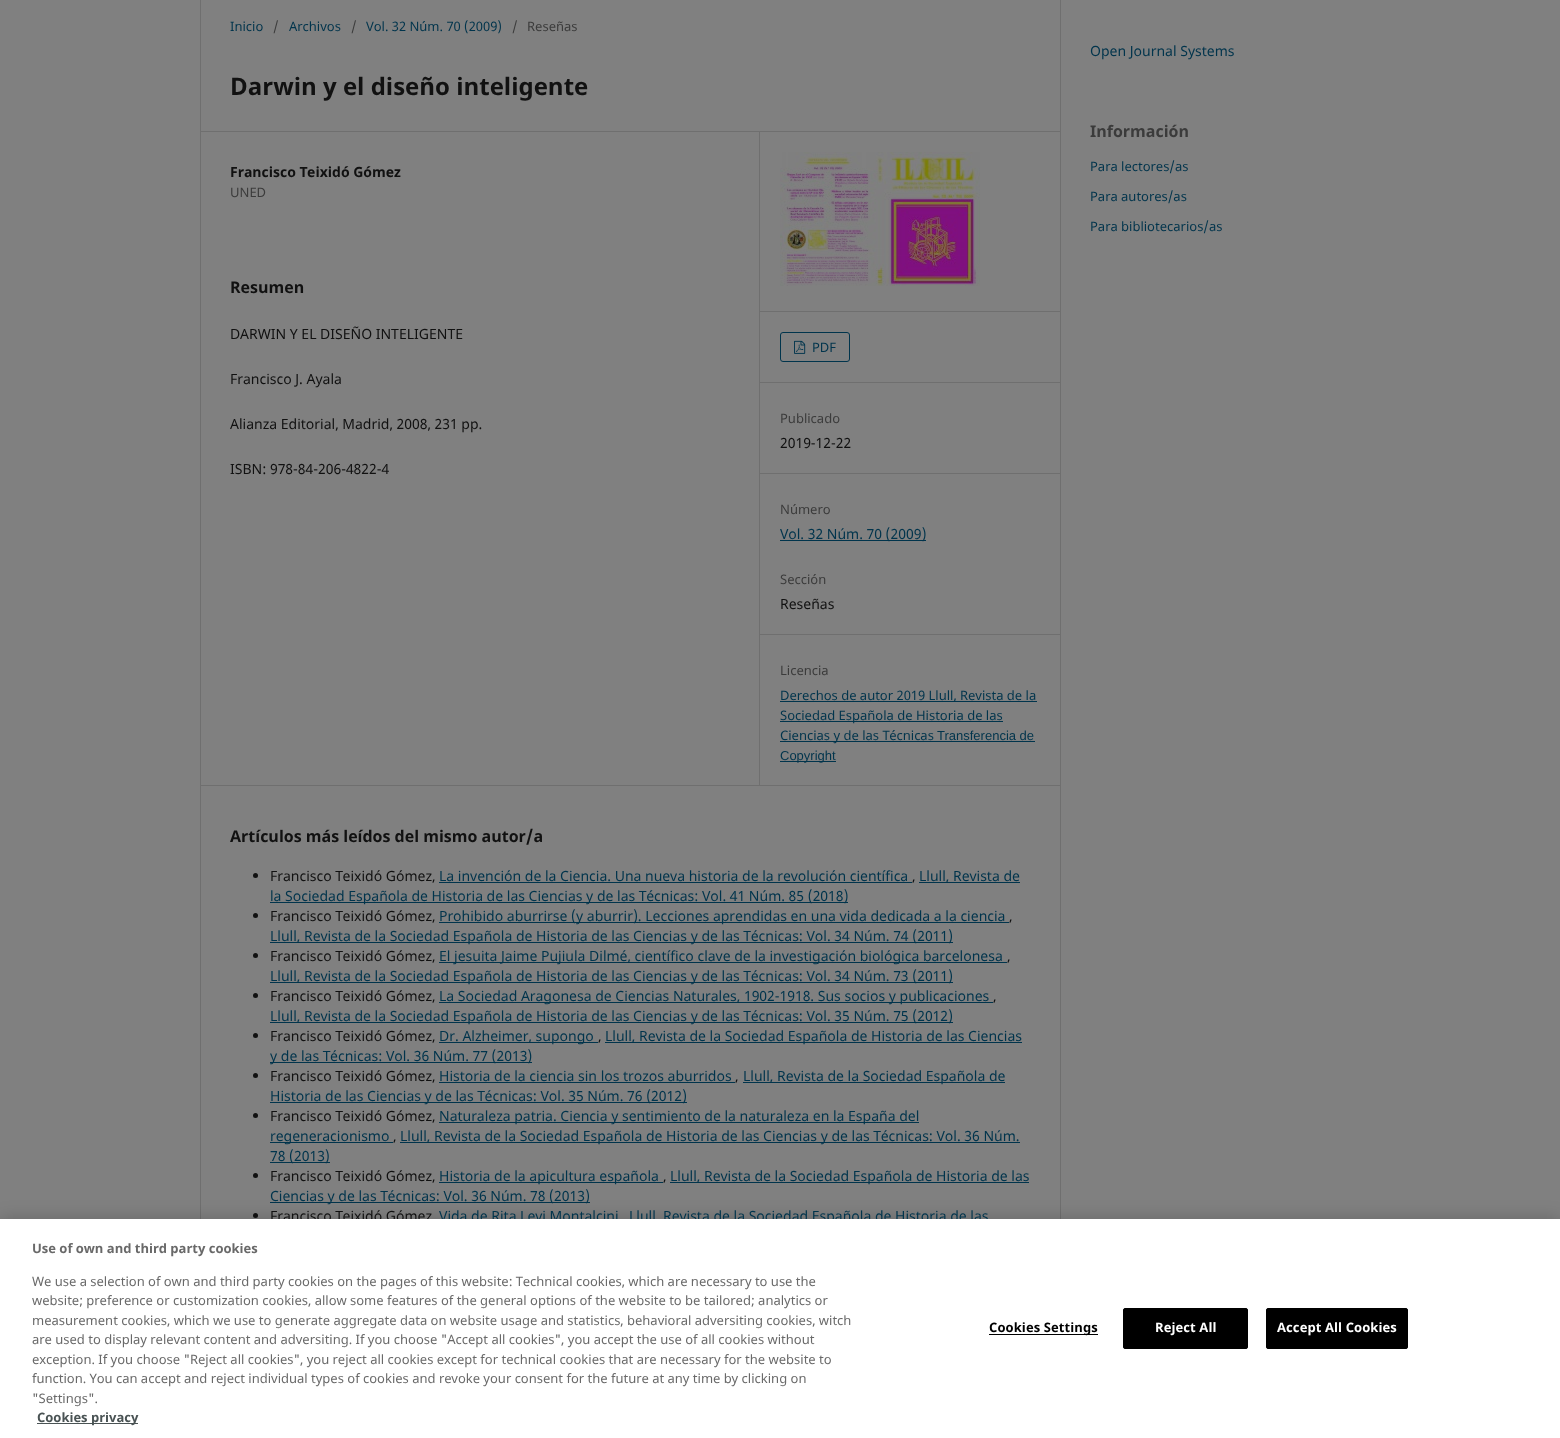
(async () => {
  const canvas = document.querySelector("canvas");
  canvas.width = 1560;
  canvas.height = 1438;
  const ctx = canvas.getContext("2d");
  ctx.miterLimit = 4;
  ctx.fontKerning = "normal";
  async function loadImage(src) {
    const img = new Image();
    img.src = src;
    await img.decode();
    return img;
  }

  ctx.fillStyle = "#808080";
  ctx.fillRect(0, 0, 1560, 1438);
  for (const [x, y, w, h, color] of [
    [200, 131, 860, 1, "#6f6f6f"],
    [200, 785, 860, 1, "#6f6f6f"],
    [200, 0, 1, 1219, "#6f6f6f"],
    [759, 132, 1, 653, "#6f6f6f"],
    [760, 311, 300, 1, "#6f6f6f"],
  ]) {
    ctx.fillStyle = color;
    ctx.fillRect(x, y, w, h);
  }
  ctx.drawImage(await loadImage("img/1.png"), 780, 152, 200, 134);
  ctx.fillRect(760, 382, 300, 1);
  ctx.beginPath();
  ctx.roundRect(780.5, 332.5, 69, 29, 2.5);
  ctx.strokeStyle = "#00344c";
  ctx.stroke();
  ctx.drawImage(await loadImage("img/2.png"), 794, 340, 12, 14);
  for (const [x, y, w, h, color] of [
    [760, 473, 300, 1, "#6f6f6f"],
    [760, 634, 300, 1, "#6f6f6f"],
    [780, 540, 146, 1, "#00344c"],
    [780, 701, 257, 1, "#00344c"],
    [780, 721, 223, 1, "#00344c"],
    [780, 741, 255, 1, "#00344c"],
    [780, 761, 56, 1, "#00344c"],
  ]) {
    ctx.fillStyle = color;
    ctx.fillRect(x, y, w, h);
  }
  ctx.fillStyle = "#111111";
  ctx.beginPath();
  ctx.arc(255.5, 875.5, 2.5, 0, Math.PI * 2);
  ctx.fill();
  for (const [x, y, w, h, color] of [
    [439, 882, 473, 1, "#00344c"],
    [919, 882, 101, 1, "#00344c"],
    [270, 902, 578, 1, "#00344c"],
  ]) {
    ctx.fillStyle = color;
    ctx.fillRect(x, y, w, h);
  }
  ctx.fillStyle = "#111111";
  ctx.beginPath();
  ctx.arc(255.5, 915.5, 2.5, 0, Math.PI * 2);
  ctx.fill();
  ctx.fillStyle = "#00344c";
  ctx.fillRect(439, 922, 570, 1);
  ctx.fillRect(270, 942, 683, 1);
  ctx.fillStyle = "#111111";
  ctx.beginPath();
  ctx.arc(255.5, 955.5, 2.5, 0, Math.PI * 2);
  ctx.fill();
  ctx.fillStyle = "#00344c";
  ctx.fillRect(439, 962, 568, 1);
  ctx.fillRect(270, 982, 683, 1);
  ctx.fillStyle = "#111111";
  ctx.beginPath();
  ctx.arc(255.5, 995.5, 2.5, 0, Math.PI * 2);
  ctx.fill();
  ctx.fillStyle = "#00344c";
  ctx.fillRect(439, 1002, 554, 1);
  ctx.fillRect(270, 1022, 683, 1);
  ctx.fillStyle = "#111111";
  ctx.beginPath();
  ctx.arc(255.5, 1035.5, 2.5, 0, Math.PI * 2);
  ctx.fill();
  for (const [x, y, w, h, color] of [
    [439, 1042, 159, 1, "#00344c"],
    [605, 1042, 417, 1, "#00344c"],
    [270, 1062, 262, 1, "#00344c"],
  ]) {
    ctx.fillStyle = color;
    ctx.fillRect(x, y, w, h);
  }
  ctx.fillStyle = "#111111";
  ctx.beginPath();
  ctx.arc(255.5, 1075.5, 2.5, 0, Math.PI * 2);
  ctx.fill();
  for (const [x, y, w, h, color] of [
    [439, 1082, 296, 1, "#00344c"],
    [743, 1082, 262, 1, "#00344c"],
    [270, 1102, 417, 1, "#00344c"],
  ]) {
    ctx.fillStyle = color;
    ctx.fillRect(x, y, w, h);
  }
  ctx.fillStyle = "#111111";
  ctx.beginPath();
  ctx.arc(255.5, 1115.5, 2.5, 0, Math.PI * 2);
  ctx.fill();
  for (const [x, y, w, h, color] of [
    [439, 1122, 480, 1, "#00344c"],
    [270, 1142, 123, 1, "#00344c"],
    [400, 1142, 620, 1, "#00344c"],
    [270, 1162, 60, 1, "#00344c"],
  ]) {
    ctx.fillStyle = color;
    ctx.fillRect(x, y, w, h);
  }
  ctx.fillStyle = "#111111";
  ctx.beginPath();
  ctx.arc(255.5, 1175.5, 2.5, 0, Math.PI * 2);
  ctx.fill();
  for (const [x, y, w, h, color] of [
    [439, 1182, 224, 1, "#00344c"],
    [670, 1182, 359, 1, "#00344c"],
    [270, 1202, 320, 1, "#00344c"],
  ]) {
    ctx.fillStyle = color;
    ctx.fillRect(x, y, w, h);
  }
  ctx.fillStyle = "#111111";
  ctx.beginPath();
  ctx.arc(255.5, 1215.5, 2.5, 0, Math.PI * 2);
  ctx.fill();
  ctx.fillStyle = "#6f6f6f";
  ctx.fillRect(1060, 0, 1, 1219);
  ctx.fillStyle = "rgba(0, 0, 0, 0.2)";
  ctx.filter = "blur(9px)";
  ctx.beginPath();
  ctx.rect(0, 1219, 1560, 219);
  ctx.fill();
  ctx.filter = "none";
  ctx.font = "13px Noto Sans";
  ctx.fillStyle = "#00344c";
  ctx.fillText("Inicio", 230, 31);
  ctx.fillStyle = "#3b3b3b";
  ctx.fillText("/", 273, 31);
  ctx.fillStyle = "#00344c";
  ctx.fillText("Archivos", 289, 31);
  ctx.fillStyle = "#3b3b3b";
  ctx.fillText("/", 351, 31);
  ctx.fillStyle = "#00344c";
  ctx.fillText("Vol. 32 Núm. 70 (2009)", 366, 31);
  ctx.fillStyle = "#3b3b3b";
  ctx.fillText("/", 512, 31);
  ctx.fillText("Reseñas", 527, 31);
  ctx.font = "bold 24px Noto Sans";
  ctx.fillStyle = "#111111";
  ctx.fillText("Darwin y el diseño inteligente", 230, 95);
  ctx.font = "bold 14px Noto Sans";
  ctx.fillText("Francisco Teixidó Gómez", 230, 177);
  ctx.font = "13px Noto Sans";
  ctx.fillStyle = "#3b3b3b";
  ctx.fillText("UNED", 230, 197);
  ctx.font = "bold 16px Noto Sans";
  ctx.fillStyle = "#111111";
  ctx.fillText("Resumen", 230, 293);
  ctx.font = "14px Noto Sans";
  for (const [text, x, y] of [
    ["DARWIN Y EL DISEÑO INTELIGENTE", 230, 339],
    ["Francisco J. Ayala", 230, 384],
    ["Alianza Editorial, Madrid, 2008, 231 pp.", 230, 429],
    ["ISBN: 978-84-206-4822-4", 230, 474],
  ]) {
    ctx.fillText(text, x, y);
  }
  ctx.font = "13px Noto Sans";
  ctx.fillStyle = "#00344c";
  ctx.fillText("PDF", 812, 352);
  ctx.fillStyle = "#3b3b3b";
  ctx.fillText("Publicado", 780, 423);
  ctx.font = "14px Noto Sans";
  ctx.fillStyle = "#111111";
  ctx.fillText("2019-12-22", 780, 448);
  ctx.font = "13px Noto Sans";
  ctx.fillStyle = "#3b3b3b";
  ctx.fillText("Número", 780, 514);
  ctx.font = "14px Noto Sans";
  ctx.fillStyle = "#00344c";
  ctx.fillText("Vol. 32 Núm. 70 (2009)", 780, 539);
  ctx.font = "13px Noto Sans";
  ctx.fillStyle = "#3b3b3b";
  ctx.fillText("Sección", 780, 584);
  ctx.font = "14px Noto Sans";
  ctx.fillStyle = "#111111";
  ctx.fillText("Reseñas", 780, 609);
  ctx.font = "13px Noto Sans";
  ctx.fillStyle = "#3b3b3b";
  ctx.fillText("Licencia", 780, 675);
  ctx.fillStyle = "#00344c";
  for (const [text, x, y] of [
    ["Derechos de autor 2019 Llull, Revista de la", 780, 700],
    ["Sociedad Española de Historia de las", 780, 720],
    ["Ciencias y de las Técnicas", 780, 740],
  ]) {
    ctx.fillText(text, x, y);
  }
  ctx.font = "13px Liberation Sans";
  ctx.fillText("Transferencia de", 937, 740);
  ctx.fillText("Copyright", 780, 760);
  ctx.font = "bold 16px Noto Sans";
  ctx.fillStyle = "#111111";
  ctx.fillText("Artículos más leídos del mismo autor/a", 230, 842);
  ctx.font = "14px Noto Sans";
  ctx.fillText("Francisco Teixidó Gómez,", 270, 881);
  ctx.fillStyle = "#00344c";
  ctx.fillText("La invención de la Ciencia. Una nueva historia de la revolución científica", 439, 881);
  ctx.fillText("Llull, Revista de", 919, 881);
  ctx.fillStyle = "#111111";
  ctx.fillText(",", 912, 881);
  ctx.fillStyle = "#00344c";
  ctx.fillText("la Sociedad Española de Historia de las Ciencias y de las Técnicas: Vol. 41 Núm. 85 (2018)", 270, 901);
  ctx.fillStyle = "#111111";
  ctx.fillText("Francisco Teixidó Gómez,", 270, 921);
  ctx.fillStyle = "#00344c";
  ctx.fillText("Prohibido aburrirse (y aburrir). Lecciones aprendidas en una vida dedicada a la ciencia", 439, 921);
  ctx.fillStyle = "#111111";
  ctx.fillText(",", 1009, 921);
  ctx.fillStyle = "#00344c";
  ctx.fillText("Llull, Revista de la Sociedad Española de Historia de las Ciencias y de las Técnicas: Vol. 34 Núm. 74 (2011)", 270, 941);
  ctx.fillStyle = "#111111";
  ctx.fillText("Francisco Teixidó Gómez,", 270, 961);
  ctx.fillStyle = "#00344c";
  ctx.fillText("El jesuita Jaime Pujiula Dilmé, científico clave de la investigación biológica barcelonesa", 439, 961);
  ctx.fillStyle = "#111111";
  ctx.fillText(",", 1007, 961);
  ctx.fillStyle = "#00344c";
  ctx.fillText("Llull, Revista de la Sociedad Española de Historia de las Ciencias y de las Técnicas: Vol. 34 Núm. 73 (2011)", 270, 981);
  ctx.fillStyle = "#111111";
  ctx.fillText("Francisco Teixidó Gómez,", 270, 1001);
  ctx.fillStyle = "#00344c";
  ctx.fillText("La Sociedad Aragonesa de Ciencias Naturales, 1902-1918. Sus socios y publicaciones", 439, 1001);
  ctx.fillStyle = "#111111";
  ctx.fillText(",", 993, 1001);
  ctx.fillStyle = "#00344c";
  ctx.fillText("Llull, Revista de la Sociedad Española de Historia de las Ciencias y de las Técnicas: Vol. 35 Núm. 75 (2012)", 270, 1021);
  ctx.fillStyle = "#111111";
  ctx.fillText("Francisco Teixidó Gómez,", 270, 1041);
  ctx.fillStyle = "#00344c";
  ctx.fillText("Dr. Alzheimer, supongo", 439, 1041);
  ctx.fillText("Llull, Revista de la Sociedad Española de Historia de las Ciencias", 605, 1041);
  ctx.fillStyle = "#111111";
  ctx.fillText(",", 598, 1041);
  ctx.fillStyle = "#00344c";
  ctx.fillText("y de las Técnicas: Vol. 36 Núm. 77 (2013)", 270, 1061);
  ctx.fillStyle = "#111111";
  ctx.fillText("Francisco Teixidó Gómez,", 270, 1081);
  ctx.fillStyle = "#00344c";
  ctx.fillText("Historia de la ciencia sin los trozos aburridos", 439, 1081);
  ctx.fillText("Llull, Revista de la Sociedad Española de", 743, 1081);
  ctx.fillStyle = "#111111";
  ctx.fillText(",", 735, 1081);
  ctx.fillStyle = "#00344c";
  ctx.fillText("Historia de las Ciencias y de las Técnicas: Vol. 35 Núm. 76 (2012)", 270, 1101);
  ctx.fillStyle = "#111111";
  ctx.fillText("Francisco Teixidó Gómez,", 270, 1121);
  ctx.fillStyle = "#00344c";
  ctx.fillText("Naturaleza patria. Ciencia y sentimiento de la naturaleza en la España del", 439, 1121);
  ctx.fillText("regeneracionismo", 270, 1141);
  ctx.fillStyle = "#111111";
  ctx.fillText(",", 393, 1141);
  ctx.fillStyle = "#00344c";
  ctx.fillText("Llull, Revista de la Sociedad Española de Historia de las Ciencias y de las Técnicas: Vol. 36 Núm.", 400, 1141);
  ctx.fillText("78 (2013)", 270, 1161);
  ctx.fillStyle = "#111111";
  ctx.fillText("Francisco Teixidó Gómez,", 270, 1181);
  ctx.fillStyle = "#00344c";
  ctx.fillText("Historia de la apicultura española", 439, 1181);
  ctx.fillText("Llull, Revista de la Sociedad Española de Historia de las", 670, 1181);
  ctx.fillStyle = "#111111";
  ctx.fillText(",", 663, 1181);
  ctx.fillStyle = "#00344c";
  ctx.fillText("Ciencias y de las Técnicas: Vol. 36 Núm. 78 (2013)", 270, 1201);
  ctx.fillStyle = "#111111";
  ctx.fillText("Francisco Teixidó Gómez", 270, 1221);
  ctx.fillStyle = "#00344c";
  for (const [text, x, y] of [
    ["Vida de Rita Levi Montalcini", 439, 1221],
    ["Llull, Revista de la Sociedad Española de Historia de las", 629, 1221],
    ["Open Journal Systems", 1090, 56],
  ]) {
    ctx.fillText(text, x, y);
  }
  ctx.font = "bold 16px Noto Sans";
  ctx.fillStyle = "#3b3b3b";
  ctx.fillText("Información", 1090, 137);
  ctx.font = "13px Noto Sans";
  ctx.fillStyle = "#00344c";
  for (const [text, x, y] of [
    ["Para lectores/as", 1090, 171],
    ["Para autores/as", 1090, 201],
    ["Para bibliotecarios/as", 1090, 231],
  ]) {
    ctx.fillText(text, x, y);
  }
  ctx.fillStyle = "#ffffff";
  ctx.fillRect(0, 1219, 1560, 219);
  ctx.font = "bold 13px Noto Sans";
  ctx.fillStyle = "#696969";
  ctx.fillText("Use of own and third party cookies", 32, 1253);
  ctx.font = "13px Noto Sans";
  for (const [text, x, y] of [
    ["We use a selection of own and third party cookies on the pages of this website: Technical cookies, which are necessary to use the", 32, 1286],
    ["website; preference or customization cookies, allow some features of the general options of the website to be tailored; analytics or", 32, 1305],
    ["measurement cookies, which we use to generate aggregate data on website usage and statistics, behavioral adversiting cookies, witch", 32, 1325],
    ["are used to display relevant content and adversiting. If you choose \"Accept all cookies\", you accept the use of all cookies without", 32, 1344],
    ["exception. If you choose \"Reject all cookies\", you reject all cookies except for technical cookies that are necessary for the website to", 32, 1364],
    ["function. You can accept and reject individual types of cookies and revoke your consent for the future at any time by clicking on", 32, 1383],
    ["\"Settings\".", 32, 1403],
  ]) {
    ctx.fillText(text, x, y);
  }
  ctx.fillStyle = "#4a5354";
  ctx.fillRect(37, 1423, 101, 1);
  ctx.font = "bold 13px Noto Sans";
  ctx.fillText("Cookies privacy", 37, 1422);
  ctx.fillStyle = "#000000";
  ctx.fillRect(989, 1334, 109, 1);
  ctx.letterSpacing = "0.1px";
  ctx.fillText("Cookies Settings", 989, 1332);
  ctx.beginPath();
  ctx.roundRect(1123.5, 1308.5, 124, 40, 1.5);
  ctx.fill();
  ctx.strokeStyle = "#000000";
  ctx.stroke();
  ctx.fillStyle = "#ffffff";
  ctx.fillText("Reject All", 1155, 1332);
  ctx.fillStyle = "#000000";
  ctx.beginPath();
  ctx.roundRect(1266.5, 1308.5, 141, 40, 1.5);
  ctx.fill();
  ctx.stroke();
  ctx.fillStyle = "#ffffff";
  ctx.fillText("Accept All Cookies", 1277, 1332);
})();
